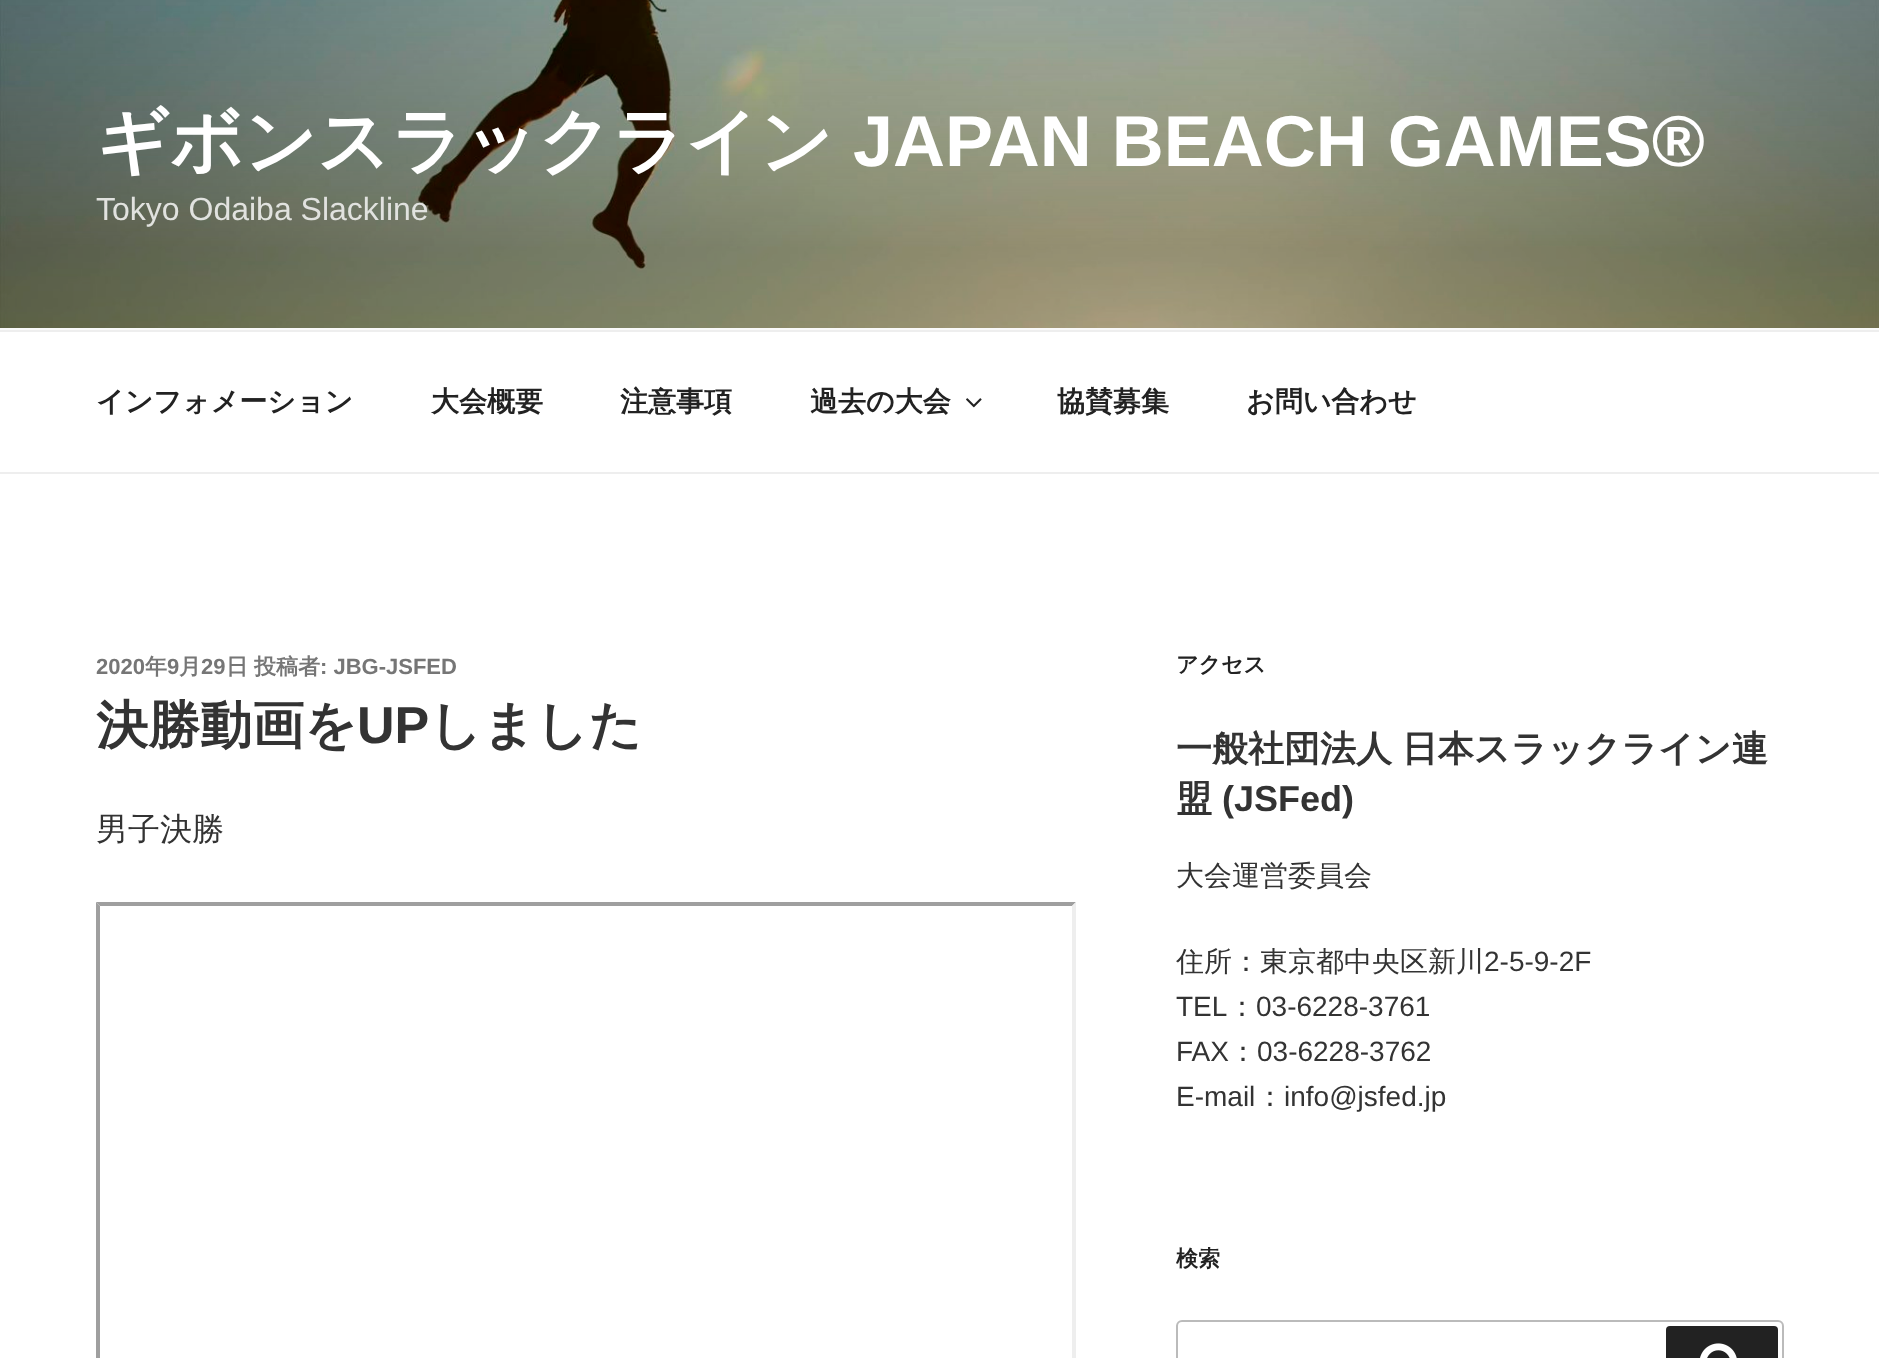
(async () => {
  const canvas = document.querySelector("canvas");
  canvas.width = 1879;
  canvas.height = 1358;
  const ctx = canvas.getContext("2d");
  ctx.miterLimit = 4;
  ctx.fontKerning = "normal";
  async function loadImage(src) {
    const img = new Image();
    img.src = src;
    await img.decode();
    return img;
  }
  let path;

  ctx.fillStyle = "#ffffff";
  ctx.fillRect(0, 0, 1879, 1358);
  ctx.fillStyle = "#fafafa";
  ctx.fillRect(0, 328, 1879, 2);
  ctx.drawImage(await loadImage("img/1.png"), 0, 0, 1879, 328);
  ctx.fillStyle = "#eeeeee";
  ctx.fillRect(0, 330, 1879, 2);
  ctx.fillRect(0, 472, 1879, 2);
  ctx.drawImage(await loadImage("img/2.png"), 966, 398, 16, 10);
  ctx.fillStyle = "#9f9f9f";
  path = new Path2D("M96 902H1076L1072 906H100Z");
  ctx.fill(path);
  path = new Path2D("M96 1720V902L100 906V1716Z");
  ctx.fill(path);
  ctx.fillStyle = "#eeeeee";
  path = new Path2D("M1076 902V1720L1072 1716V906Z");
  ctx.fill(path);
  ctx.beginPath();
  ctx.roundRect(1177, 1321, 606, 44, 5);
  ctx.strokeStyle = "#bbbbbb";
  ctx.lineWidth = 2;
  ctx.stroke();
  ctx.fillStyle = "#222222";
  ctx.beginPath();
  ctx.roundRect(1666, 1326, 112, 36, 4);
  ctx.fill();
  ctx.drawImage(await loadImage("img/3.png"), 1700, 1343, 37, 15);
  ctx.font = "bold 72px WenQuanYi Zen Hei";
  ctx.fillStyle = "#ffffff";
  ctx.fillText("ギボンスラックライン", 96, 166);
  ctx.font = "bold 72px Liberation Sans";
  ctx.fillText("JAPAN BEACH GAMES®", 853, 166);
  ctx.font = "32px Liberation Sans";
  ctx.fillStyle = "#e1e2df";
  ctx.fillText("Tokyo Odaiba Slackline", 96, 220);
  ctx.font = "bold 28px WenQuanYi Zen Hei";
  ctx.fillStyle = "#222222";
  for (const [text, x, y] of [
    ["インフォメーション", 96, 411],
    ["大会概要", 431, 411],
    ["注意事項", 620, 411],
    ["過去の大会", 810, 411],
    ["協賛募集", 1057, 411],
    ["お問い合わせ", 1246, 411],
  ]) {
    ctx.fillText(text, x, y);
  }
  ctx.font = "bold 22px Liberation Sans";
  ctx.fillStyle = "#767676";
  ctx.fillText("2020", 96, 674);
  ctx.font = "bold 22px WenQuanYi Zen Hei";
  ctx.fillText("年", 145, 674);
  ctx.font = "bold 22px Liberation Sans";
  ctx.fillText("9", 167, 674);
  ctx.font = "bold 22px WenQuanYi Zen Hei";
  ctx.fillText("月", 179, 674);
  ctx.font = "bold 22px Liberation Sans";
  ctx.fillText("29", 201, 674);
  ctx.font = "bold 22px WenQuanYi Zen Hei";
  ctx.fillText("日", 226, 674);
  ctx.fillText("投稿者", 254, 674);
  ctx.font = "bold 22px Liberation Sans";
  ctx.fillText(": JBG-JSFED", 320, 674);
  ctx.font = "bold 52px WenQuanYi Zen Hei";
  ctx.fillStyle = "#333333";
  ctx.fillText("決勝動画を", 96, 743);
  ctx.font = "bold 52px Liberation Sans";
  ctx.fillText("UP", 357, 743);
  ctx.font = "bold 52px WenQuanYi Zen Hei";
  ctx.fillText("しました", 429, 743);
  ctx.font = "500 32px WenQuanYi Zen Hei";
  ctx.fillText("男子決勝", 96, 840);
  ctx.font = "bold 22px WenQuanYi Zen Hei";
  ctx.fillStyle = "#222222";
  ctx.fillText("アクセス", 1176, 672);
  ctx.wordSpacing = "-1px";
  ctx.font = "bold 36px WenQuanYi Zen Hei";
  ctx.fillStyle = "#333333";
  ctx.fillText("一般社団法人 日本スラックライン連", 1176, 761);
  ctx.wordSpacing = "0px";
  ctx.fillText("盟", 1176, 811);
  ctx.font = "bold 36px Liberation Sans";
  ctx.fillText("(JSFed)", 1222, 811);
  ctx.font = "500 28px WenQuanYi Zen Hei";
  ctx.fillText("大会運営委員会", 1176, 885);
  ctx.fillText("住所：東京都中央区新川", 1176, 971);
  ctx.font = "28px Liberation Sans";
  ctx.fillText("2-5-9-2F", 1484, 971);
  ctx.fillText("TEL", 1176, 1016);
  ctx.font = "500 28px WenQuanYi Zen Hei";
  ctx.fillText("：", 1228, 1016);
  ctx.font = "28px Liberation Sans";
  ctx.fillText("03-6228-3761", 1256, 1016);
  ctx.fillText("FAX", 1176, 1061);
  ctx.font = "500 28px WenQuanYi Zen Hei";
  ctx.fillText("：", 1229, 1061);
  ctx.font = "28px Liberation Sans";
  ctx.fillText("03-6228-3762", 1257, 1061);
  ctx.fillText("E-mail", 1176, 1106);
  ctx.font = "500 28px WenQuanYi Zen Hei";
  ctx.fillText("：", 1256, 1106);
  ctx.font = "28px Liberation Sans";
  ctx.fillText("info@jsfed.jp", 1284, 1106);
  ctx.font = "bold 22px WenQuanYi Zen Hei";
  ctx.fillStyle = "#222222";
  ctx.fillText("検索", 1176, 1266);
})();
